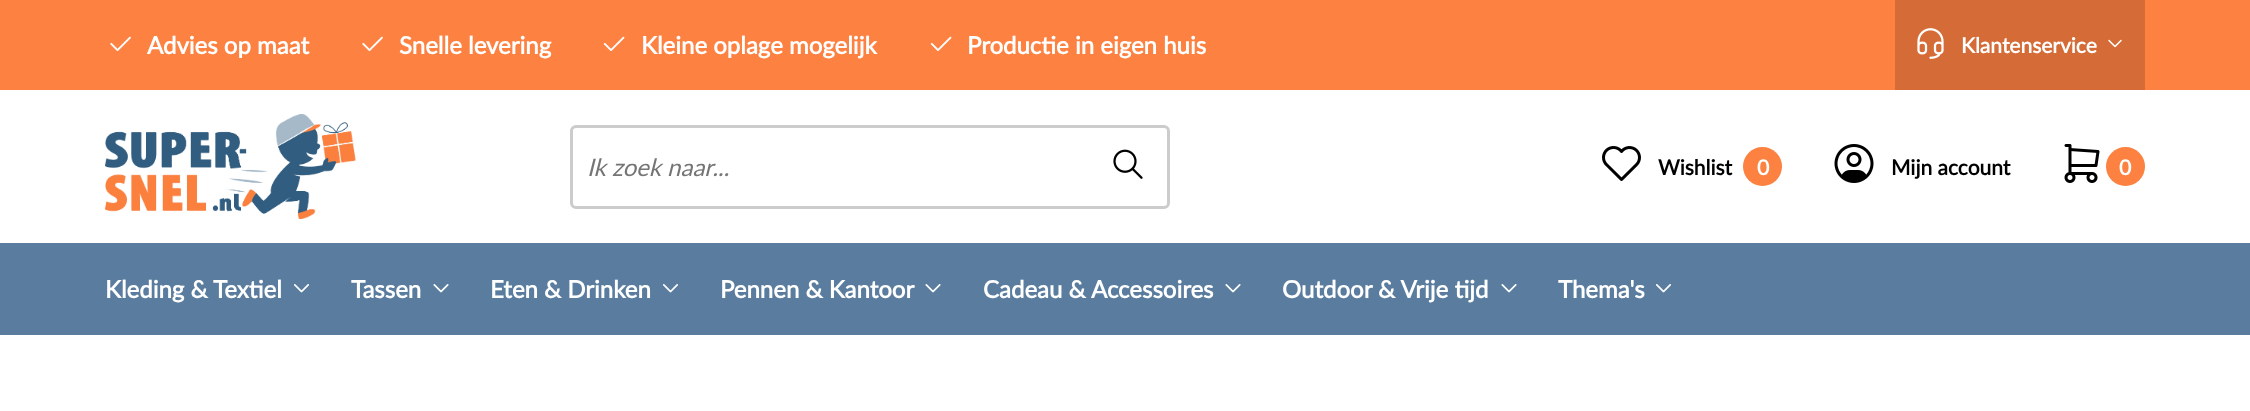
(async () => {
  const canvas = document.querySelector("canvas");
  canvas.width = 2250;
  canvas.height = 411;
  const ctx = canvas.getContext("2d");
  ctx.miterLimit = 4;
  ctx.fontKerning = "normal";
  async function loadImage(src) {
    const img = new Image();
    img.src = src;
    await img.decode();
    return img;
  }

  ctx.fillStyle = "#ffffff";
  ctx.fillRect(0, 0, 2250, 411);
  ctx.fillStyle = "#fd8141";
  ctx.fillRect(0, 0, 2250, 90);
  ctx.drawImage(await loadImage("img/1.png"), 110, 36, 21, 15);
  ctx.drawImage(await loadImage("img/1.png"), 362, 36, 21, 15);
  ctx.drawImage(await loadImage("img/2.png"), 603, 36, 22, 15);
  ctx.drawImage(await loadImage("img/2.png"), 930, 36, 22, 15);
  ctx.fillStyle = "#d56c37";
  ctx.fillRect(1895, 0, 250, 90);
  ctx.drawImage(await loadImage("img/3.png"), 1917, 28, 27, 31);
  ctx.drawImage(await loadImage("img/4.png"), 2108, 39, 14, 9);
  ctx.drawImage(await loadImage("img/5.png"), 105, 114, 251, 105);
  ctx.beginPath();
  ctx.roundRect(571.5, 126.5, 597, 81, 4.5);
  ctx.strokeStyle = "#cccccc";
  ctx.lineWidth = 3;
  ctx.stroke();
  ctx.drawImage(await loadImage("img/6.png"), 1113, 149, 30, 30);
  ctx.drawImage(await loadImage("img/7.png"), 1602, 146, 39, 35);
  ctx.fillStyle = "#fd8141";
  ctx.beginPath();
  ctx.arc(1762.5, 166.5, 19.5, 0, Math.PI * 2);
  ctx.fill();
  ctx.drawImage(await loadImage("img/8.png"), 1834, 144, 40, 39);
  ctx.drawImage(await loadImage("img/9.png"), 2064, 144, 36, 39);
  ctx.beginPath();
  ctx.arc(2125.5, 166.5, 19.5, 0, Math.PI * 2);
  ctx.fill();
  ctx.fillStyle = "#5a7d9f";
  ctx.fillRect(0, 243, 2250, 92);
  ctx.drawImage(await loadImage("img/10.png"), 294, 284, 15, 9);
  ctx.drawImage(await loadImage("img/11.png"), 433, 284, 16, 9);
  ctx.drawImage(await loadImage("img/10.png"), 663, 284, 15, 9);
  ctx.drawImage(await loadImage("img/11.png"), 925, 284, 16, 9);
  ctx.drawImage(await loadImage("img/11.png"), 1225, 284, 16, 9);
  ctx.drawImage(await loadImage("img/11.png"), 1501, 284, 16, 9);
  ctx.drawImage(await loadImage("img/10.png"), 1656, 284, 15, 9);
  ctx.font = "bold 24px Lato";
  ctx.fillStyle = "#ffffff";
  for (const [text, x, y] of [
    ["Advies op maat", 147, 54],
    ["Snelle levering", 399, 54],
    ["Kleine oplage mogelijk", 641, 54],
    ["Productie in eigen huis", 967, 54],
  ]) {
    ctx.fillText(text, x, y);
  }
  ctx.font = "bold 21px Lato";
  ctx.fillText("Klantenservice", 1961, 53);
  ctx.font = "italic 24px Lato";
  ctx.fillStyle = "#757575";
  ctx.fillText("Ik zoek naar...", 587, 176);
  ctx.font = "bold 21px Lato";
  ctx.fillStyle = "#000000";
  ctx.fillText("Wishlist", 1658, 175);
  ctx.fillStyle = "#ffffff";
  ctx.fillText("0", 1757, 175);
  ctx.fillStyle = "#000000";
  ctx.fillText("Mijn account", 1891, 175);
  ctx.fillStyle = "#ffffff";
  ctx.fillText("0", 2119, 175);
  ctx.font = "bold 24px Lato";
  for (const [text, x, y] of [
    ["Kleding & Textiel", 105, 298],
    ["Tassen", 351, 298],
    ["Eten & Drinken", 490, 298],
    ["Pennen & Kantoor", 720, 298],
    ["Cadeau & Accessoires", 983, 298],
    ["Outdoor & Vrije tijd", 1282, 298],
    ["Thema's", 1558, 298],
  ]) {
    ctx.fillText(text, x, y);
  }
})();
